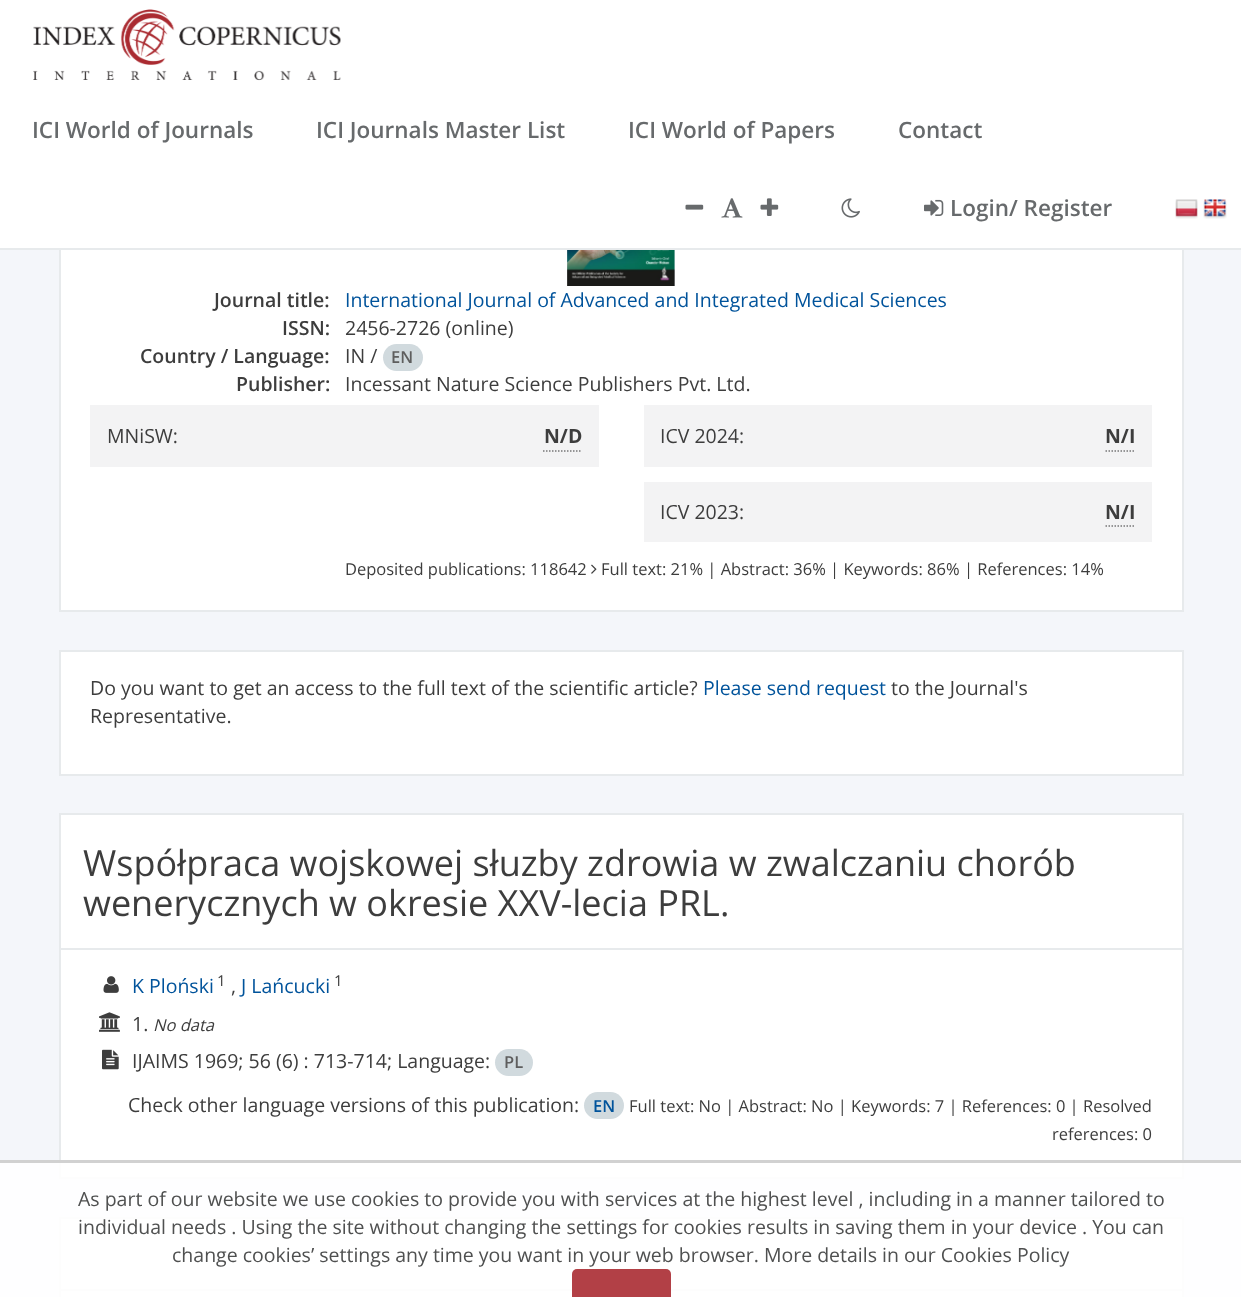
(async () => {
  const canvas = document.querySelector("canvas");
  canvas.width = 1241;
  canvas.height = 1297;
  const ctx = canvas.getContext("2d");
  ctx.miterLimit = 4;
  ctx.fontKerning = "normal";
  async function loadImage(src) {
    const img = new Image();
    img.src = src;
    await img.decode();
    return img;
  }
  let path;

  ctx.fillStyle = "#f4f6fa";
  ctx.fillRect(0, 0, 1241, 1297);
  ctx.fillStyle = "#ffffff";
  ctx.fillRect(61, 250, 1121, 360);
  ctx.strokeStyle = "#e7eaec";
  ctx.lineWidth = 2;
  ctx.strokeRect(60, 114, 1123, 497);
  ctx.fillRect(0, 0, 1241, 248);
  ctx.fillStyle = "#e7eaec";
  ctx.fillRect(0, 248, 1241, 2);
  ctx.drawImage(await loadImage("img/1.png"), 33, 9, 308, 72);
  ctx.drawImage(await loadImage("img/2.png"), 685, 204, 19, 6);
  ctx.drawImage(await loadImage("img/3.png"), 721, 198, 22, 20);
  ctx.drawImage(await loadImage("img/4.png"), 760, 198, 19, 18);
  ctx.drawImage(await loadImage("img/5.png"), 841, 198, 19, 20);
  ctx.drawImage(await loadImage("img/6.png"), 924, 199, 20, 17);
  ctx.drawImage(await loadImage("img/7.png"), 1175, 199, 23, 20);
  ctx.drawImage(await loadImage("img/8.png"), 1203, 199, 24, 20);
  ctx.drawImage(await loadImage("img/9.png"), 567, 250, 108, 36);
  ctx.fillStyle = "#d1dade";
  ctx.beginPath();
  ctx.roundRect(383, 344, 40, 27, 13.5);
  ctx.fill();
  ctx.fillStyle = "#f3f3f4";
  ctx.fillRect(90, 405, 509, 62);
  path = new Path2D("M543 451H582");
  ctx.strokeStyle = "#777777";
  ctx.lineWidth = 1.5;
  ctx.setLineDash([1.5, 1.5]);
  ctx.stroke(path);
  ctx.fillRect(644, 405, 508, 62);
  path = new Path2D("M1105.5 451H1135.5");
  ctx.stroke(path);
  ctx.fillRect(644, 482, 508, 60);
  path = new Path2D("M1105.5 526H1135.5");
  ctx.stroke(path);
  ctx.drawImage(await loadImage("img/10.png"), 591, 564, 6, 10);
  ctx.fillStyle = "#ffffff";
  ctx.beginPath();
  ctx.rect(60, 651, 1123, 124);
  ctx.fill();
  ctx.strokeStyle = "#e7eaec";
  ctx.lineWidth = 2;
  ctx.setLineDash([]);
  ctx.stroke();
  for (const [x, y, w, h, color] of [
    [61, 815, 1121, 133, "#ffffff"],
    [59, 813, 1125, 2, "#e7eaec"],
    [1182, 813, 2, 135, "#e7eaec"],
    [59, 813, 2, 135, "#e7eaec"],
  ]) {
    ctx.fillStyle = color;
    ctx.fillRect(x, y, w, h);
  }
  ctx.fillStyle = "#ffffff";
  ctx.beginPath();
  ctx.rect(60, 949, 1123, 229);
  ctx.fill();
  ctx.stroke();
  ctx.drawImage(await loadImage("img/11.png"), 103, 976, 16, 17);
  ctx.drawImage(await loadImage("img/12.png"), 99, 1012, 21, 20);
  ctx.drawImage(await loadImage("img/13.png"), 102, 1049, 17, 21);
  ctx.fillStyle = "#d1dade";
  ctx.beginPath();
  ctx.roundRect(495, 1049, 38, 27, 13.5);
  ctx.fill();
  ctx.beginPath();
  ctx.roundRect(584, 1092, 40, 27, 13.5);
  ctx.fill();
  for (const [x, y, w, h, color] of [
    [61, 1219, 1121, 70, "#ffffff"],
    [59, 1217, 1125, 2, "#e7eaec"],
    [1182, 1217, 2, 72, "#e7eaec"],
    [59, 1217, 2, 72, "#e7eaec"],
  ]) {
    ctx.fillStyle = color;
    ctx.fillRect(x, y, w, h);
  }
  ctx.fillStyle = "#ffffff";
  ctx.beginPath();
  ctx.rect(60, 1290, 1123, 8);
  ctx.fill();
  ctx.stroke();
  ctx.fillStyle = "rgba(255, 255, 255, 0.9)";
  ctx.fillRect(0, 1163, 1241, 134);
  ctx.fillStyle = "#d1d1d1";
  ctx.fillRect(0, 1160, 1241, 3);
  ctx.fillStyle = "#b24046";
  ctx.beginPath();
  ctx.roundRect(572, 1269, 99, 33, 5);
  ctx.fill();
  ctx.font = "600 22.5px Open Sans";
  ctx.fillStyle = "#676a6c";
  for (const [text, x, y] of [
    ["ICI World of Journals", 32, 138],
    ["ICI Journals Master List", 316, 138],
    ["ICI World of Papers", 628, 138],
    ["Contact", 898, 138],
    ["Login/ Register", 950, 216],
  ]) {
    ctx.fillText(text, x, y);
  }
  ctx.font = "600 19.5px Open Sans";
  ctx.fillStyle = "#3d3d3d";
  ctx.fillText("Journal title:", 214, 307);
  ctx.font = "19.5px Open Sans";
  ctx.fillStyle = "#00539b";
  ctx.fillText("International Journal of Advanced and Integrated Medical Sciences", 345, 307);
  ctx.font = "600 19.5px Open Sans";
  ctx.fillStyle = "#3d3d3d";
  ctx.fillText("ISSN:", 282, 335);
  ctx.font = "19.5px Open Sans";
  ctx.fillText("2456-2726 (online)", 345, 335);
  ctx.font = "600 19.5px Open Sans";
  ctx.fillText("Country / Language:", 140, 363);
  ctx.font = "19.5px Open Sans";
  ctx.fillText("IN /", 345, 363);
  ctx.font = "600 16.5px Open Sans";
  ctx.fillStyle = "#5e5e5e";
  ctx.fillText("EN", 391, 363);
  ctx.font = "600 19.5px Open Sans";
  ctx.fillStyle = "#3d3d3d";
  ctx.fillText("Publisher:", 236, 391);
  ctx.font = "19.5px Open Sans";
  ctx.fillText("Incessant Nature Science Publishers Pvt. Ltd.", 345, 391);
  ctx.fillText("MNiSW:", 107, 443);
  ctx.font = "bold 19.5px Open Sans";
  ctx.fillText("N/D", 544, 443);
  ctx.font = "19.5px Open Sans";
  ctx.fillText("ICV 2024:", 660, 443);
  ctx.font = "bold 19.5px Open Sans";
  ctx.fillText("N/I", 1105, 443);
  ctx.font = "19.5px Open Sans";
  ctx.fillText("ICV 2023:", 660, 519);
  ctx.font = "bold 19.5px Open Sans";
  ctx.fillText("N/I", 1105, 519);
  ctx.font = "16.5px Open Sans";
  ctx.fillText("Deposited publications: 118642", 345, 575);
  ctx.fillText("Full text: 21% | Abstract: 36% | Keywords: 86% | References: 14%", 601, 575);
  ctx.font = "19.5px Open Sans";
  ctx.fillText("Do you want to get an access to the full text of the scientific article?", 90, 695);
  ctx.fillStyle = "#00539b";
  ctx.fillText("Please send request", 703, 695);
  ctx.fillStyle = "#3d3d3d";
  ctx.fillText("to the Journal's", 891, 695);
  ctx.fillText("Representative.", 90, 723);
  ctx.font = "36px Open Sans";
  ctx.fillText("Współpraca wojskowej słuzby zdrowia w zwalczaniu chorób", 83, 876);
  ctx.fillText("wenerycznych w okresie XXV-lecia PRL.", 83, 916);
  ctx.font = "19.5px Open Sans";
  ctx.fillStyle = "#00539b";
  ctx.fillText("K Ploński", 132, 993);
  ctx.font = "15px Open Sans";
  ctx.fillStyle = "#3d3d3d";
  ctx.fillText("1", 217, 986);
  ctx.font = "19.5px Open Sans";
  ctx.fillText(",", 231, 993);
  ctx.fillStyle = "#00539b";
  ctx.fillText("J Lańcucki", 241, 993);
  ctx.font = "15px Open Sans";
  ctx.fillStyle = "#3d3d3d";
  ctx.fillText("1", 334, 986);
  ctx.font = "19.5px Open Sans";
  ctx.fillText("1.", 132, 1031);
  ctx.font = "italic 16.5px Open Sans";
  ctx.fillText("No data", 153, 1031);
  ctx.font = "19.5px Open Sans";
  ctx.fillText("IJAIMS 1969; 56 (6) : 713-714; Language:", 132, 1068);
  ctx.font = "600 16.5px Open Sans";
  ctx.fillStyle = "#5e5e5e";
  ctx.fillText("PL", 504, 1068);
  ctx.font = "19.5px Open Sans";
  ctx.fillStyle = "#3d3d3d";
  ctx.fillText("Check other language versions of this publication:", 128, 1112);
  ctx.font = "600 16.5px Open Sans";
  ctx.fillStyle = "#00539b";
  ctx.fillText("EN", 593, 1112);
  ctx.font = "16.5px Open Sans";
  ctx.fillStyle = "#3d3d3d";
  ctx.fillText("Full text: No | Abstract: No | Keywords: 7 | References: 0 | Resolved", 629, 1112);
  ctx.fillText("references: 0", 1052, 1140);
  ctx.font = "19.5px Open Sans";
  ctx.fillStyle = "#4f5050";
  for (const [text, x, y] of [
    ["As part of our website we use cookies to provide you with services at the highest level , including in a manner tailored to", 78, 1206],
    ["individual needs . Using the site without changing the settings for cookies results in saving them in your device . You can", 78, 1234],
    ["change cookies’ settings any time you want in your web browser. More details in our Cookies Policy", 172, 1262],
  ]) {
    ctx.fillText(text, x, y);
  }
})();
